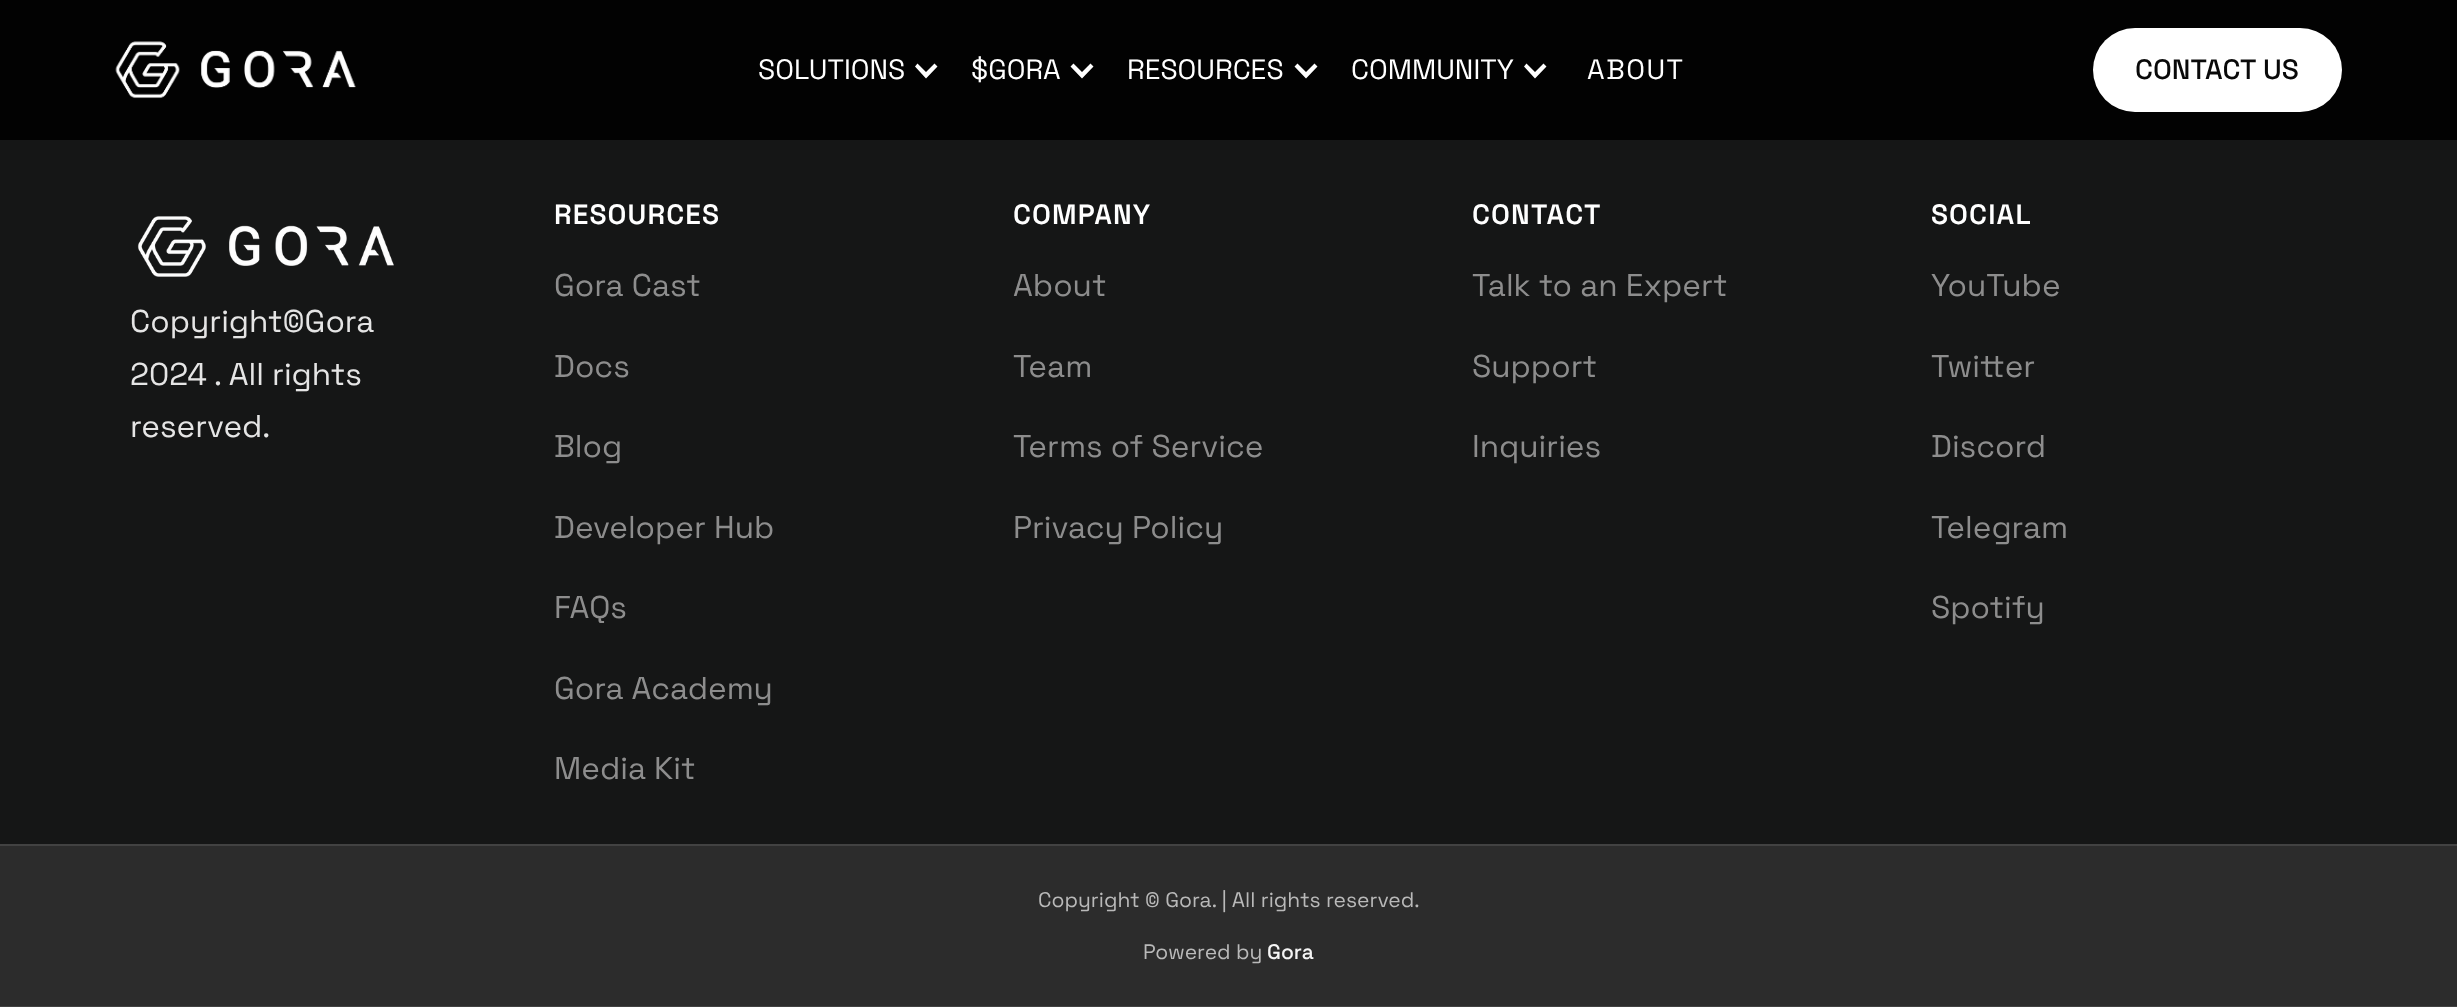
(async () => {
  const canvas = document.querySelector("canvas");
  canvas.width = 2457;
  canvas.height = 1007;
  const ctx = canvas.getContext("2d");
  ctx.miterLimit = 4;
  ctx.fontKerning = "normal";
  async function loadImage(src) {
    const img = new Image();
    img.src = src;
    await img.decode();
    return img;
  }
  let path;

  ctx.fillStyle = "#151616";
  ctx.fillRect(0, 0, 2457, 1007);
  ctx.fillStyle = "#020202";
  ctx.fillRect(0, 0, 2457, 140);
  ctx.drawImage(await loadImage("img/1.png"), 115, 41, 241, 58);
  ctx.fillStyle = "#ffffff";
  path = new Path2D("M934.5 63.5L926 72L917.5 63.5L915 66.5L926 78.5L937.5 66.5Z");
  ctx.fill(path);
  path = new Path2D("M1090.5 63.5L1082 72L1073.5 63.5L1070.5 66.5L1082 78.5L1093.5 66.5Z");
  ctx.fill(path);
  path = new Path2D("M1314.5 63.5L1306 72L1297.5 63.5L1294.5 66.5L1306 78.5L1317.5 66.5Z");
  ctx.fill(path);
  path = new Path2D("M1543.5 63.5L1535 72L1526.5 63.5L1524 66.5L1535 78.5L1546.5 66.5Z");
  ctx.fill(path);
  ctx.beginPath();
  ctx.roundRect(2093, 28, 249, 84, 42);
  ctx.fill();
  ctx.drawImage(await loadImage("img/2.png"), 137, 216, 257, 61);
  for (const [x, y, w, h, color] of [
    [0, 846, 2457, 160, "#2c2c2c"],
    [0, 844, 2457, 2, "#424242"],
    [0, 1006, 2457, 1, "#424242"],
  ]) {
    ctx.fillStyle = color;
    ctx.fillRect(x, y, w, h);
  }
  ctx.font = "28px Space Grotesk";
  ctx.fillStyle = "#ffffff";
  for (const [text, x, y] of [
    ["SOLUTIONS", 758, 79],
    ["$GORA", 971, 79],
    ["RESOURCES", 1127, 79],
    ["COMMUNITY", 1351, 79],
  ]) {
    ctx.fillText(text, x, y);
  }
  ctx.letterSpacing = "1.5px";
  ctx.fillText("ABOUT", 1587, 79);
  ctx.letterSpacing = "0px";
  ctx.font = "500 28px Space Grotesk";
  ctx.fillStyle = "#090909";
  ctx.fillText("CONTACT US", 2135, 79);
  ctx.font = "31.5px Space Grotesk";
  ctx.fillStyle = "#e5e5e5";
  for (const [text, x, y] of [
    ["Copyright©Gora", 130, 332],
    ["2024 . All rights", 130, 385],
    ["reserved.", 130, 437],
  ]) {
    ctx.fillText(text, x, y);
  }
  ctx.letterSpacing = "1.1px";
  ctx.font = "600 28px Space Grotesk";
  ctx.fillStyle = "#ffffff";
  ctx.fillText("RESOURCES", 554, 224);
  ctx.letterSpacing = "0px";
  ctx.font = "31.5px Space Grotesk";
  ctx.fillStyle = "#8d8d8d";
  for (const [text, x, y] of [
    ["Gora Cast", 554, 296],
    ["Docs", 554, 377],
    ["Blog", 554, 457],
    ["Developer Hub", 554, 538],
    ["FAQs", 554, 618],
    ["Gora Academy", 554, 699],
    ["Media Kit", 554, 779],
  ]) {
    ctx.fillText(text, x, y);
  }
  ctx.letterSpacing = "1.1px";
  ctx.font = "600 28px Space Grotesk";
  ctx.fillStyle = "#ffffff";
  ctx.fillText("COMPANY", 1013, 224);
  ctx.letterSpacing = "0px";
  ctx.font = "31.5px Space Grotesk";
  ctx.fillStyle = "#8d8d8d";
  for (const [text, x, y] of [
    ["About", 1013, 296],
    ["Team", 1013, 377],
    ["Terms of Service", 1013, 457],
    ["Privacy Policy", 1013, 538],
  ]) {
    ctx.fillText(text, x, y);
  }
  ctx.letterSpacing = "1.1px";
  ctx.font = "600 28px Space Grotesk";
  ctx.fillStyle = "#ffffff";
  ctx.fillText("CONTACT", 1472, 224);
  ctx.letterSpacing = "0px";
  ctx.font = "31.5px Space Grotesk";
  ctx.fillStyle = "#8d8d8d";
  for (const [text, x, y] of [
    ["Talk to an Expert", 1472, 296],
    ["Support", 1472, 377],
    ["Inquiries", 1472, 457],
  ]) {
    ctx.fillText(text, x, y);
  }
  ctx.letterSpacing = "1.1px";
  ctx.font = "600 28px Space Grotesk";
  ctx.fillStyle = "#ffffff";
  ctx.fillText("SOCIAL", 1931, 224);
  ctx.letterSpacing = "0px";
  ctx.font = "31.5px Space Grotesk";
  ctx.fillStyle = "#8d8d8d";
  for (const [text, x, y] of [
    ["YouTube", 1931, 296],
    ["Twitter", 1931, 377],
    ["Discord", 1931, 457],
    ["Telegram", 1931, 538],
    ["Spotify", 1931, 618],
  ]) {
    ctx.fillText(text, x, y);
  }
  ctx.font = "21px Space Grotesk";
  ctx.fillStyle = "#b9b9b9";
  ctx.fillText("Copyright © Gora. | All rights reserved.", 1038, 907);
  ctx.fillText("Powered by", 1143, 959);
  ctx.font = "500 21px Space Grotesk";
  ctx.fillStyle = "#f5f5f5";
  ctx.fillText("Gora", 1267, 959);
})();
